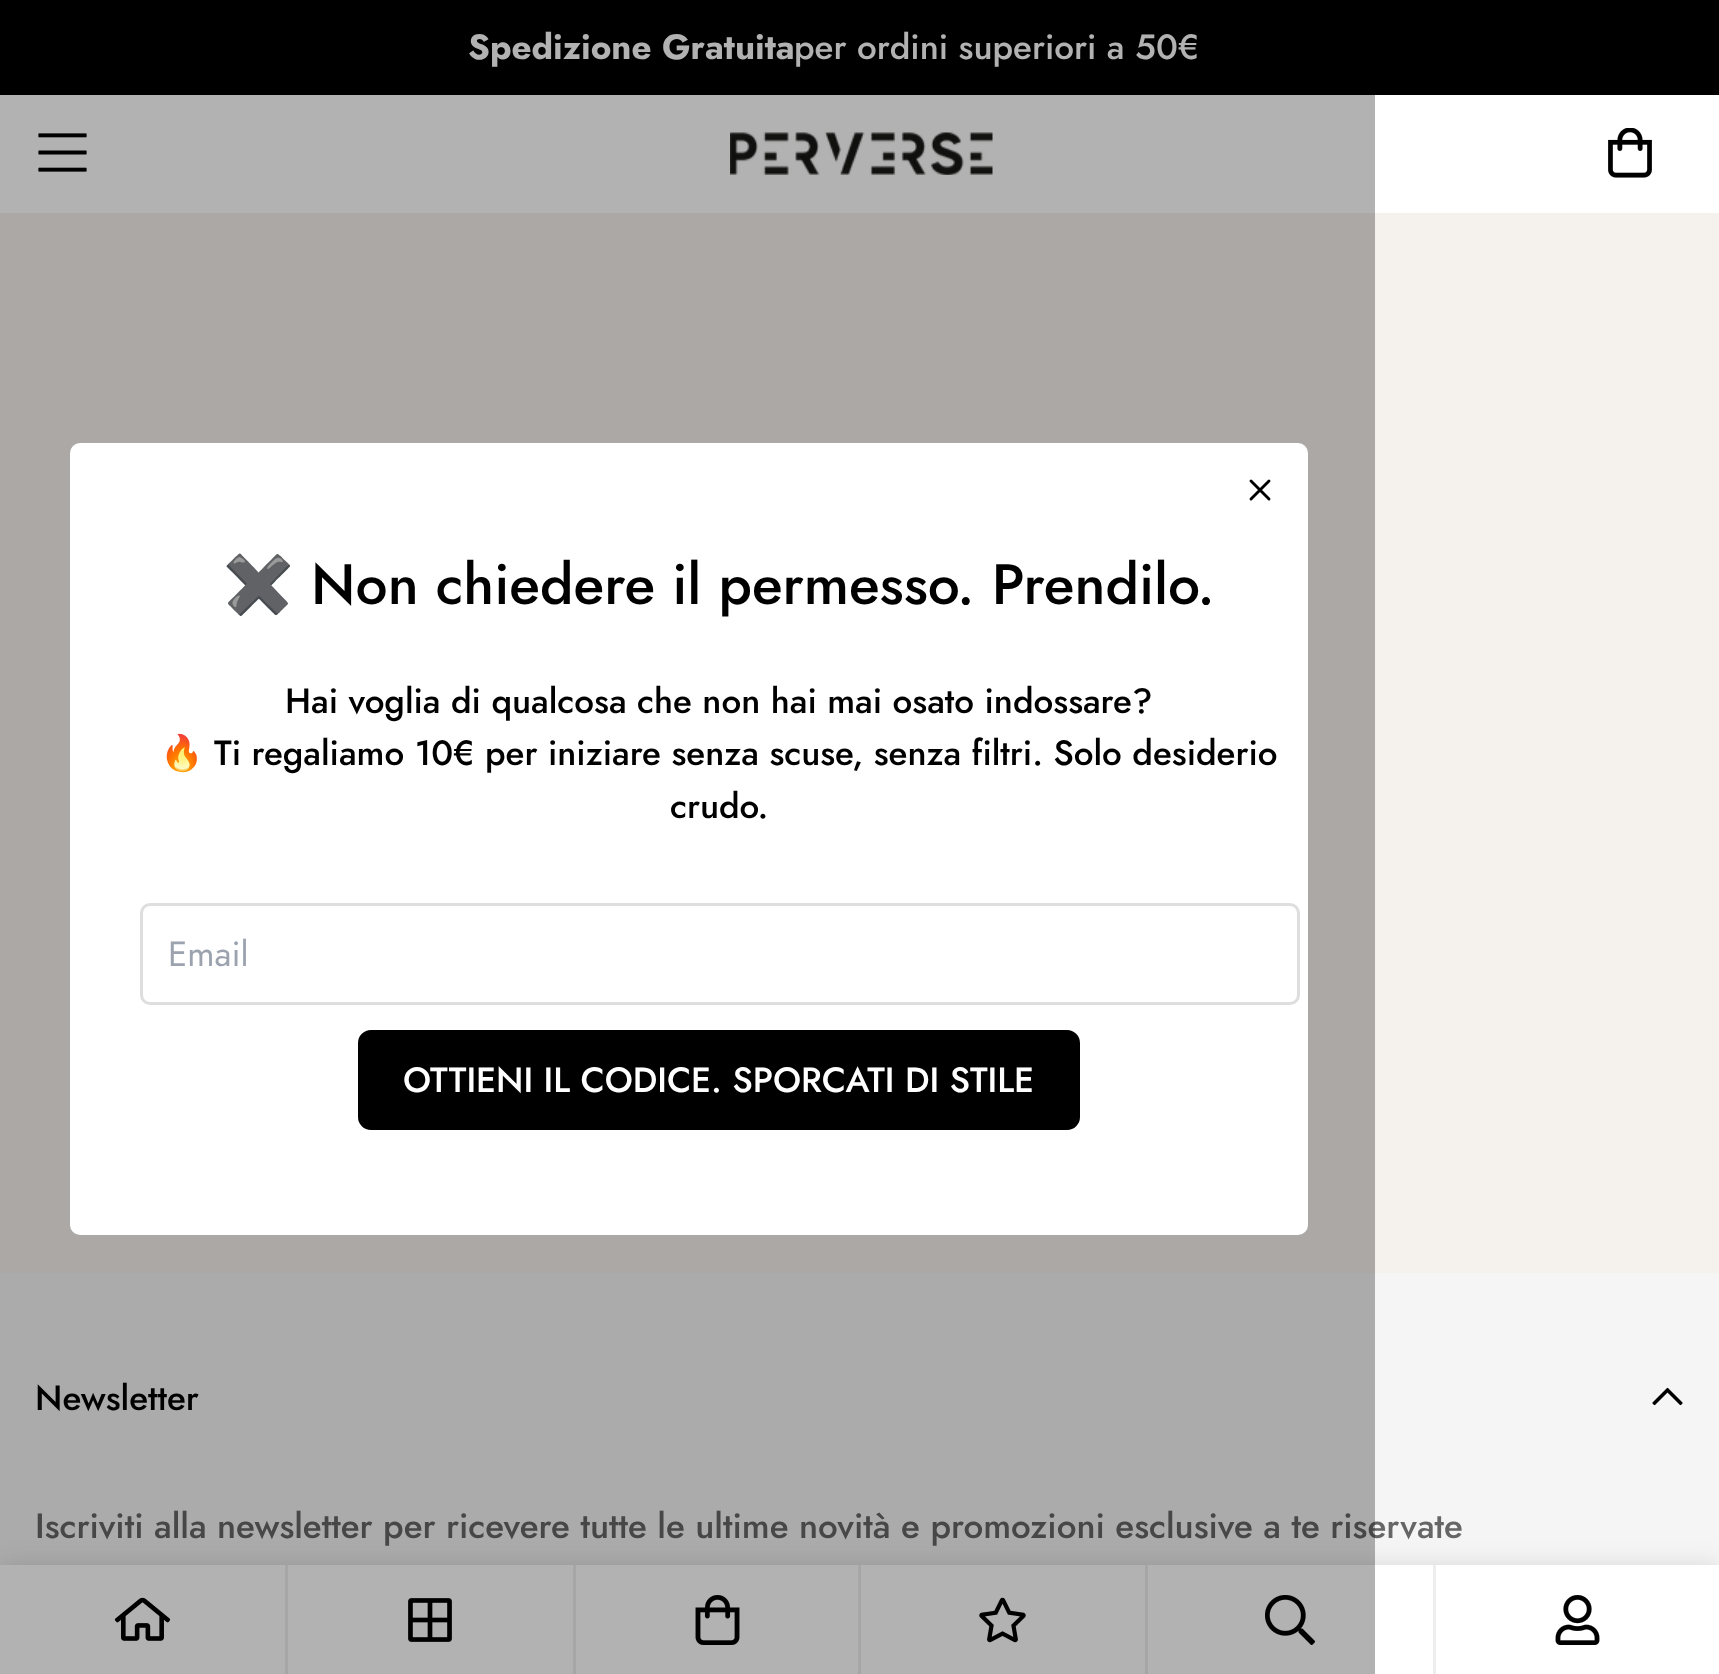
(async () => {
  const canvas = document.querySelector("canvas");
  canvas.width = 1719;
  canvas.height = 1674;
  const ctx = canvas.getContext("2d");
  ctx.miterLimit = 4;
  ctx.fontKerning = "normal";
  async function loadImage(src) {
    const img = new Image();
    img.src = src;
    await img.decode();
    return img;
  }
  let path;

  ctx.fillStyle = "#ffffff";
  ctx.fillRect(0, 0, 1719, 1674);
  ctx.fillStyle = "#000000";
  ctx.fillRect(0, 0, 1719, 95);
  ctx.drawImage(await loadImage("img/1.png"), 38, 133, 49, 39);
  ctx.drawImage(await loadImage("img/2.png"), 730, 132, 263, 43);
  ctx.drawImage(await loadImage("img/3.png"), 1608, 128, 44, 50);
  ctx.fillStyle = "#f5f1ed";
  ctx.fillRect(0, 213, 1719, 1060);
  ctx.fillStyle = "#f5f5f5";
  ctx.fillRect(0, 1273, 1719, 292);
  ctx.drawImage(await loadImage("img/4.png"), 1652, 1387, 31, 19);
  ctx.fillStyle = "rgba(0, 0, 0, 0.11)";
  ctx.filter = "blur(12.5px)";
  ctx.beginPath();
  ctx.rect(0, 1565, 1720, 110);
  ctx.fill();
  ctx.filter = "none";
  ctx.fillStyle = "#ffffff";
  ctx.fillRect(0, 1565, 1719, 109);
  ctx.fillStyle = "#eeeeee";
  ctx.fillRect(285, 1565, 3, 109);
  ctx.drawImage(await loadImage("img/5.png"), 114, 1597, 57, 44);
  ctx.fillRect(573, 1565, 3, 109);
  ctx.drawImage(await loadImage("img/6.png"), 408, 1598, 44, 44);
  ctx.fillRect(858, 1565, 3, 109);
  ctx.drawImage(await loadImage("img/7.png"), 695, 1595, 45, 50);
  ctx.fillRect(1145, 1565, 3, 109);
  ctx.drawImage(await loadImage("img/8.png"), 979, 1597, 47, 46);
  ctx.fillRect(1433, 1565, 3, 109);
  ctx.drawImage(await loadImage("img/9.png"), 1265, 1595, 50, 50);
  ctx.drawImage(await loadImage("img/10.png"), 1555, 1595, 45, 50);
  ctx.font = "bold 35px Jost";
  ctx.fillStyle = "#ffffff";
  ctx.fillText("Spedizione Gratuita", 468, 59);
  ctx.font = "500 35px Jost";
  ctx.fillText("per ordini superiori a 50€", 794, 59);
  ctx.fillStyle = "#000000";
  ctx.fillText("Newsletter", 35, 1410);
  ctx.fillStyle = "#666666";
  ctx.fillText("Iscriviti alla newsletter per ricevere tutte le ultime novità e promozioni esclusive a te riservate", 35, 1538);
  ctx.fillStyle = "rgba(0, 0, 0, 0.3)";
  ctx.fillRect(0, 31, 1375, 1643);
  ctx.fillStyle = "#ffffff";
  ctx.beginPath();
  ctx.roundRect(70, 443, 1238, 792, 10);
  ctx.fill();
  path = new Path2D("M1251 499L1269 481M1251 481L1269 499");
  ctx.strokeStyle = "#000000";
  ctx.lineWidth = 2.9;
  ctx.lineCap = "round";
  ctx.lineJoin = "round";
  ctx.stroke(path);
  ctx.fillStyle = "#000000";
  ctx.beginPath();
  ctx.roundRect(359.5, 1031.5, 719, 97, 11.5);
  ctx.fill();
  ctx.lineWidth = 3;
  ctx.lineJoin = "miter";
  ctx.stroke();
  ctx.fillStyle = "#ffffff";
  ctx.fillText("OTTIENI IL CODICE. SPORCATI DI STILE", 403, 1092);
  ctx.beginPath();
  ctx.roundRect(141.5, 904.5, 1157, 99, 8.5);
  ctx.strokeStyle = "#dedede";
  ctx.stroke();
  ctx.font = "35px Jost";
  ctx.fillStyle = "#9ca3af";
  ctx.fillText("Email", 168, 966);
  ctx.font = "500 35px Jost";
  ctx.fillStyle = "#000000";
  ctx.fillText("crudo.", 670, 818);
  ctx.fillText("Ti regaliamo 10€ per iniziare senza scuse, senza filtri. Solo desiderio", 214, 765);
  ctx.font = "35px Noto Color Emoji";
  ctx.fillText("🔥", 160, 765);
  ctx.font = "500 35px Jost";
  ctx.fillText("Hai voglia di qualcosa che non hai mai osato indossare?", 285, 713);
  ctx.font = "500 56.9px Jost";
  ctx.fillText("Non chiedere il permesso. Prendilo.", 311, 604);
  ctx.font = "56.9px Noto Color Emoji";
  ctx.fillText("✖️", 223, 604);
})();
